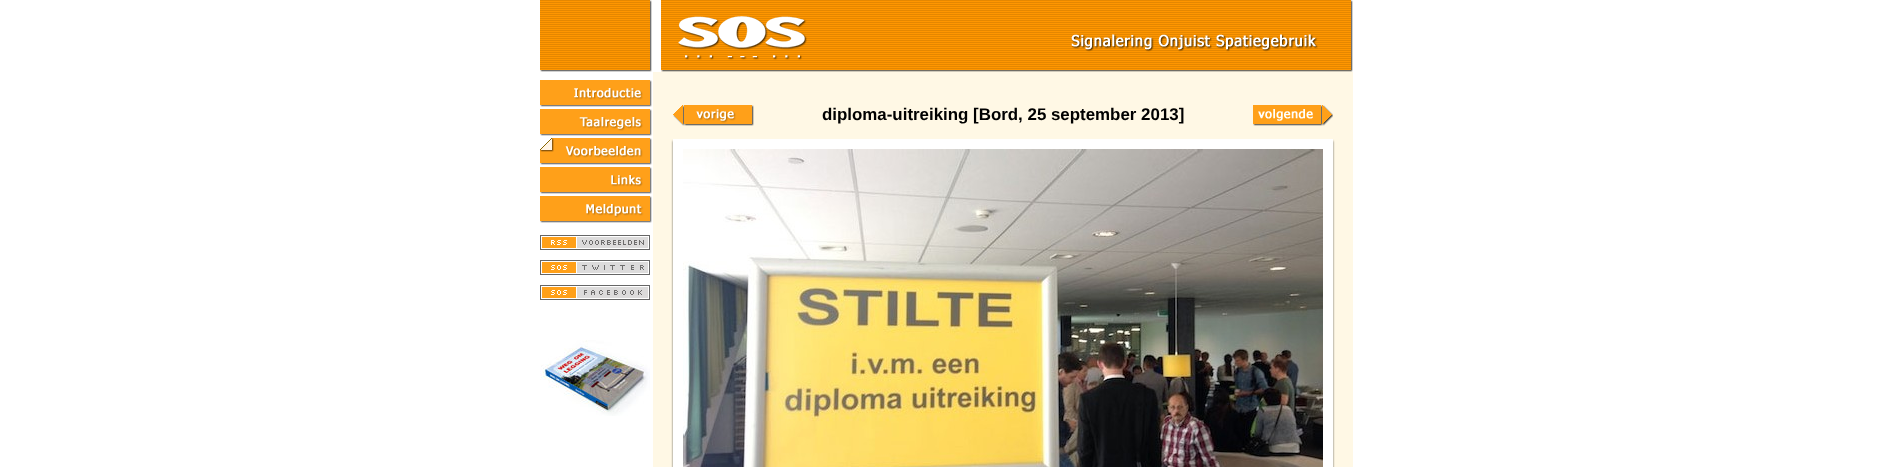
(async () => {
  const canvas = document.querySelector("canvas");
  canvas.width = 1893;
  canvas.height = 467;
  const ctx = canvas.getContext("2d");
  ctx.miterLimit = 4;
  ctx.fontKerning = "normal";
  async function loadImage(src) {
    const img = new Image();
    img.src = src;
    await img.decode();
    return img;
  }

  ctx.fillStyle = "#ffffff";
  ctx.fillRect(0, 0, 1893, 467);
  ctx.drawImage(await loadImage("img/1.png"), 540, 0, 813, 72);
  ctx.drawImage(await loadImage("img/2.png"), 540, 80, 112, 27);
  ctx.drawImage(await loadImage("img/3.png"), 540, 109, 112, 27);
  ctx.drawImage(await loadImage("img/4.png"), 540, 138, 112, 27);
  ctx.drawImage(await loadImage("img/5.png"), 540, 167, 112, 27);
  ctx.drawImage(await loadImage("img/6.png"), 540, 196, 112, 27);
  ctx.drawImage(await loadImage("img/7.png"), 540, 235, 110, 15);
  ctx.drawImage(await loadImage("img/8.png"), 540, 260, 110, 15);
  ctx.drawImage(await loadImage("img/9.png"), 540, 285, 110, 15);
  ctx.drawImage(await loadImage("img/10.png"), 540, 340, 110, 76);
  ctx.fillStyle = "#fff8e5";
  ctx.fillRect(653, 72, 700, 395);
  ctx.drawImage(await loadImage("img/11.png"), 673, 105, 81, 21);
  ctx.drawImage(await loadImage("img/12.png"), 1253, 105, 80, 21);
  ctx.fillStyle = "rgba(50, 50, 50, 0.75)";
  ctx.filter = "blur(1px)";
  ctx.beginPath();
  ctx.rect(673, 141, 660, 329);
  ctx.fill();
  ctx.filter = "none";
  ctx.strokeStyle = "#ffffff";
  ctx.lineWidth = 10;
  ctx.strokeRect(678, 144, 650, 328);
  ctx.drawImage(await loadImage("img/13.png"), 683, 149, 640, 318);
  ctx.font = "bold 16.9px Liberation Sans";
  ctx.fillStyle = "#000000";
  ctx.fillText("diploma-uitreiking [Bord, 25 september 2013]", 822, 120);
})();
